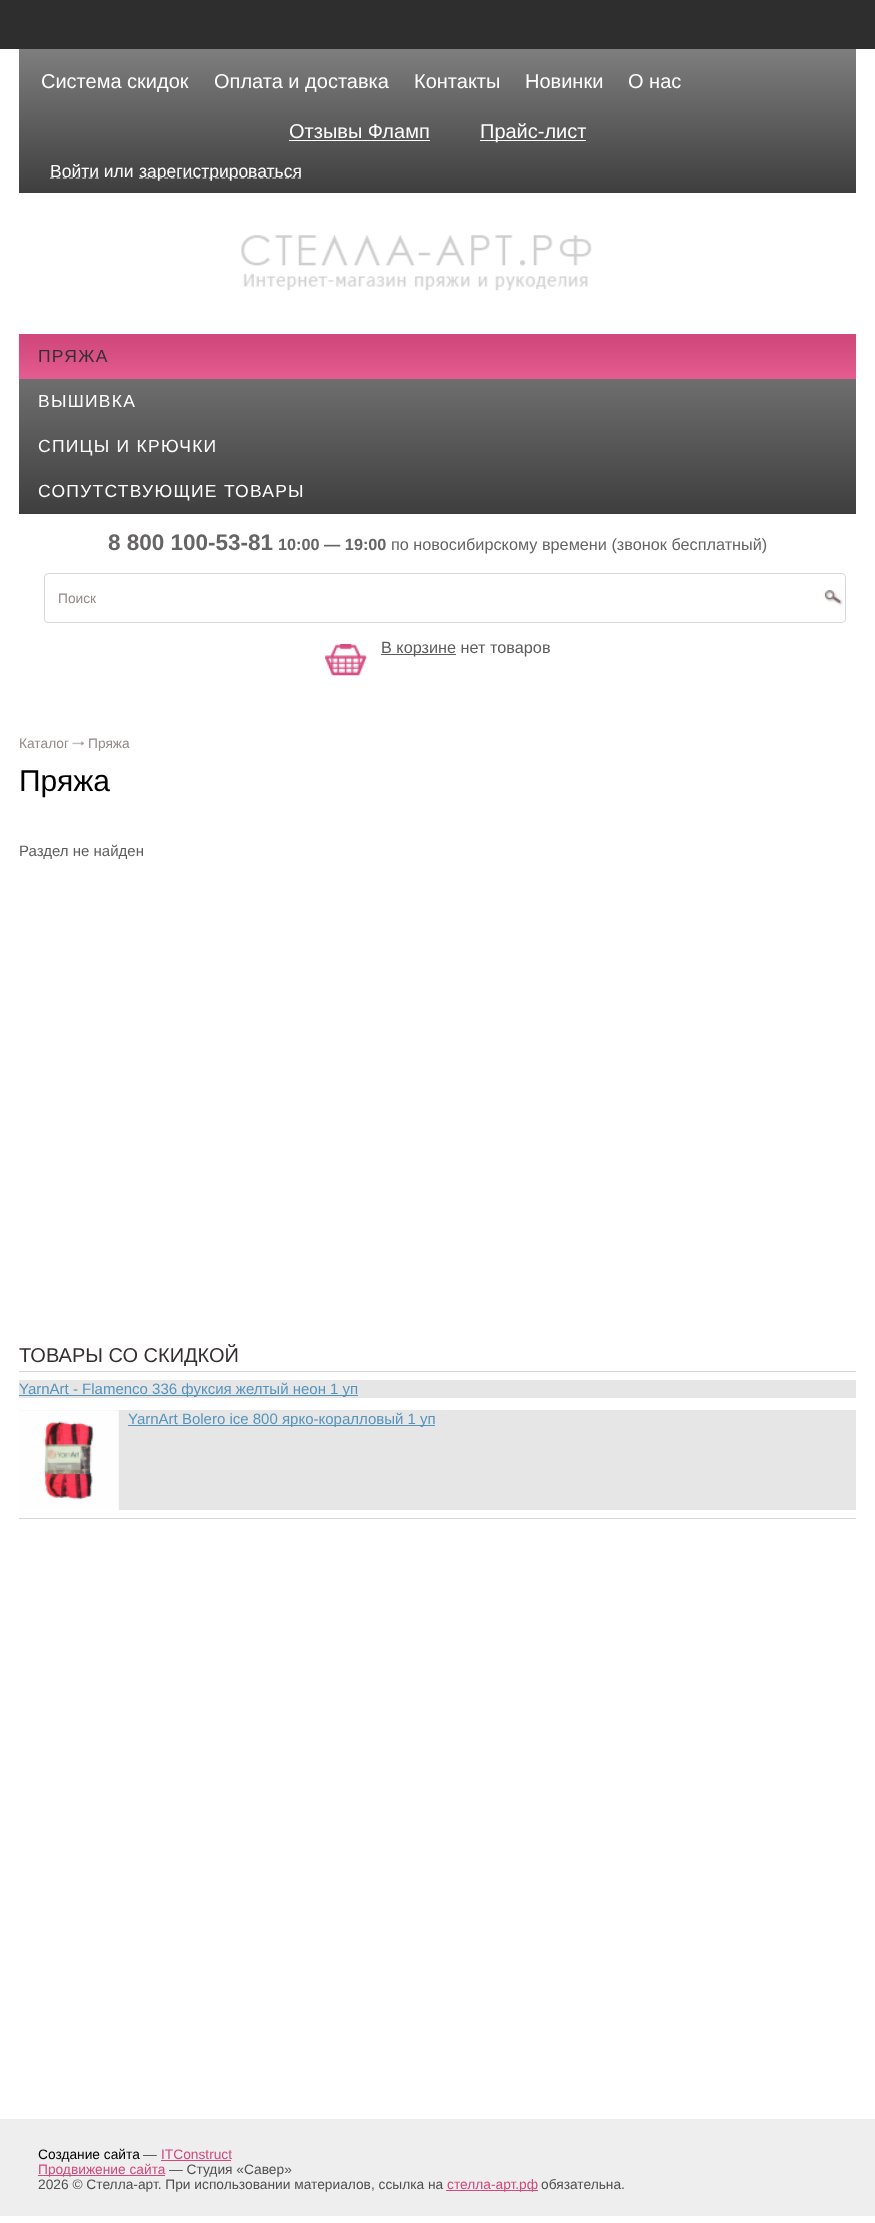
(async () => {
  const canvas = document.querySelector("canvas");
  canvas.width = 875;
  canvas.height = 2223;
  const ctx = canvas.getContext("2d");
  ctx.miterLimit = 4;
  ctx.fontKerning = "normal";
  async function loadImage(src) {
    const img = new Image();
    img.src = src;
    await img.decode();
    return img;
  }
  let gradient, path;

  ctx.fillStyle = "#2e2e2e";
  ctx.fillRect(0, 0, 875, 2223);
  ctx.fillStyle = "#ffffff";
  ctx.fillRect(0, 49, 875, 2174);
  gradient = ctx.createLinearGradient(438, 49, 438, 193);
  gradient.addColorStop(0, "#7e7e7e");
  gradient.addColorStop(1, "#3e3e3e");
  ctx.fillStyle = gradient;
  ctx.fillRect(19, 49, 837, 144);
  ctx.fillStyle = "#ffffff";
  ctx.fillRect(289, 140, 141, 1);
  ctx.fillRect(480, 140, 106, 1);
  path = new Path2D("M50 178H99");
  ctx.strokeStyle = "#ffffff";
  ctx.lineWidth = 1.2;
  ctx.setLineDash([3.75, 2.68]);
  ctx.stroke(path);
  path = new Path2D("M139 178H301");
  ctx.setLineDash([3.75, 2.6]);
  ctx.stroke(path);
  ctx.drawImage(await loadImage("img/1.png"), 241, 235, 351, 56);
  gradient = ctx.createLinearGradient(438, 334, 438, 514);
  gradient.addColorStop(0, "#7e7e7e");
  gradient.addColorStop(1, "#3e3e3e");
  ctx.fillStyle = gradient;
  ctx.fillRect(19, 379, 837, 135);
  ctx.drawImage(await loadImage("img/2.png"), 18, 334, 839, 45);
  ctx.beginPath();
  ctx.roundRect(44.5, 573.5, 801, 49, 3.5);
  ctx.strokeStyle = "#d8d8d8";
  ctx.lineWidth = 1;
  ctx.setLineDash([]);
  ctx.stroke();
  ctx.drawImage(await loadImage("img/3.png"), 821, 589, 22, 17);
  ctx.drawImage(await loadImage("img/4.png"), 325, 644, 42, 32);
  ctx.fillStyle = "#5d5d5d";
  ctx.fillRect(381, 654, 75, 1);
  ctx.drawImage(await loadImage("img/5.png"), 72, 741, 12, 5);
  for (const [x, y, w, h, color] of [
    [19, 1518, 837, 1, "#d6d6d6"],
    [19, 1371, 837, 1, "#d6d6d6"],
    [19, 1380, 837, 18, "#e6e6e6"],
    [19, 1395, 339, 1, "#5594bc"],
    [19, 1410, 837, 100, "#e6e6e6"],
  ]) {
    ctx.fillStyle = color;
    ctx.fillRect(x, y, w, h);
  }
  ctx.drawImage(await loadImage("img/6.png"), 19, 1410, 100, 100);
  for (const [x, y, w, h, color] of [
    [128, 1425, 307, 1, "#5594bc"],
    [0, 2119, 875, 97, "#eeeeee"],
    [161, 2160, 70, 1, "#d1497d"],
    [38, 2175, 127, 1, "#d1497d"],
    [446, 2190, 92, 1, "#d24a7e"],
  ]) {
    ctx.fillStyle = color;
    ctx.fillRect(x, y, w, h);
  }
  ctx.font = "20px Liberation Sans";
  ctx.fillStyle = "#ffffff";
  for (const [text, x, y] of [
    ["Система скидок", 41, 88],
    ["Оплата и доставка", 214, 88],
    ["Контакты", 414, 88],
    ["Новинки", 525, 88],
    ["О нас", 628, 88],
    ["Отзывы Фламп", 289, 138],
    ["Прайс-лист", 480, 138],
  ]) {
    ctx.fillText(text, x, y);
  }
  ctx.font = "17.5px Liberation Sans";
  ctx.fillText("Войти или", 50, 177);
  ctx.fillText("зарегистрироваться", 139, 177);
  ctx.letterSpacing = "1.25px";
  ctx.fillStyle = "#352f31";
  ctx.fillText("ПРЯЖА", 38, 362);
  ctx.fillStyle = "#ffffff";
  for (const [text, x, y] of [
    ["ВЫШИВКА", 38, 407],
    ["СПИЦЫ И КРЮЧКИ", 38, 452],
    ["СОПУТСТВУЮЩИЕ ТОВАРЫ", 38, 497],
  ]) {
    ctx.fillText(text, x, y);
  }
  ctx.letterSpacing = "0px";
  ctx.font = "bold 22.5px Liberation Sans";
  ctx.fillStyle = "#666464";
  ctx.fillText("8 800 100-53-81", 108, 550);
  ctx.font = "bold 16.25px Liberation Sans";
  ctx.fillText("10:00 — 19:00", 278, 550);
  ctx.font = "16.25px Liberation Sans";
  ctx.fillText("по новосибирскому времени (звонок бесплатный)", 391, 550);
  ctx.font = "13.75px Liberation Sans";
  ctx.fillStyle = "#948a89";
  ctx.fillText("Поиск", 58, 603);
  ctx.font = "16.25px Liberation Sans";
  ctx.fillStyle = "#5d5d5d";
  ctx.fillText("В корзине нет товаров", 381, 653);
  ctx.font = "13.75px Liberation Sans";
  ctx.fillStyle = "#948a89";
  ctx.fillText("Каталог", 19, 748);
  ctx.fillText("Пряжа", 88, 748);
  ctx.font = "30px Liberation Sans";
  ctx.fillStyle = "#000000";
  ctx.fillText("Пряжа", 19, 791);
  ctx.font = "15px Liberation Sans";
  ctx.fillStyle = "#5d5d5d";
  ctx.fillText("Раздел не найден", 19, 856);
  ctx.font = "20px Liberation Sans";
  ctx.fillStyle = "#352f31";
  ctx.fillText("ТОВАРЫ СО СКИДКОЙ", 19, 1362);
  ctx.font = "15px Liberation Sans";
  ctx.fillStyle = "#5594bc";
  ctx.fillText("YarnArt - Flamenco 336 фуксия желтый неон 1 уп", 19, 1394);
  ctx.fillText("YarnArt Bolero ice 800 ярко-коралловый 1 уп", 128, 1424);
  ctx.font = "13.75px Liberation Sans";
  ctx.fillStyle = "#000000";
  ctx.fillText("Создание сайта", 38, 2159);
  ctx.fillStyle = "#505050";
  ctx.fillText("—", 143, 2159);
  ctx.fillStyle = "#d1497d";
  ctx.fillText("ITConstruct", 161, 2159);
  ctx.fillText("Продвижение сайта", 38, 2174);
  ctx.fillStyle = "#505050";
  ctx.fillText("— Студия «Савер»", 169, 2174);
  ctx.fillText("2026 © Стелла-арт. При использовании материалов, ссылка на", 38, 2189);
  ctx.fillStyle = "#d1497d";
  ctx.fillText("стелла-арт.рф", 447, 2189);
  ctx.fillStyle = "#505050";
  ctx.fillText("обязательна.", 541, 2189);
})();
